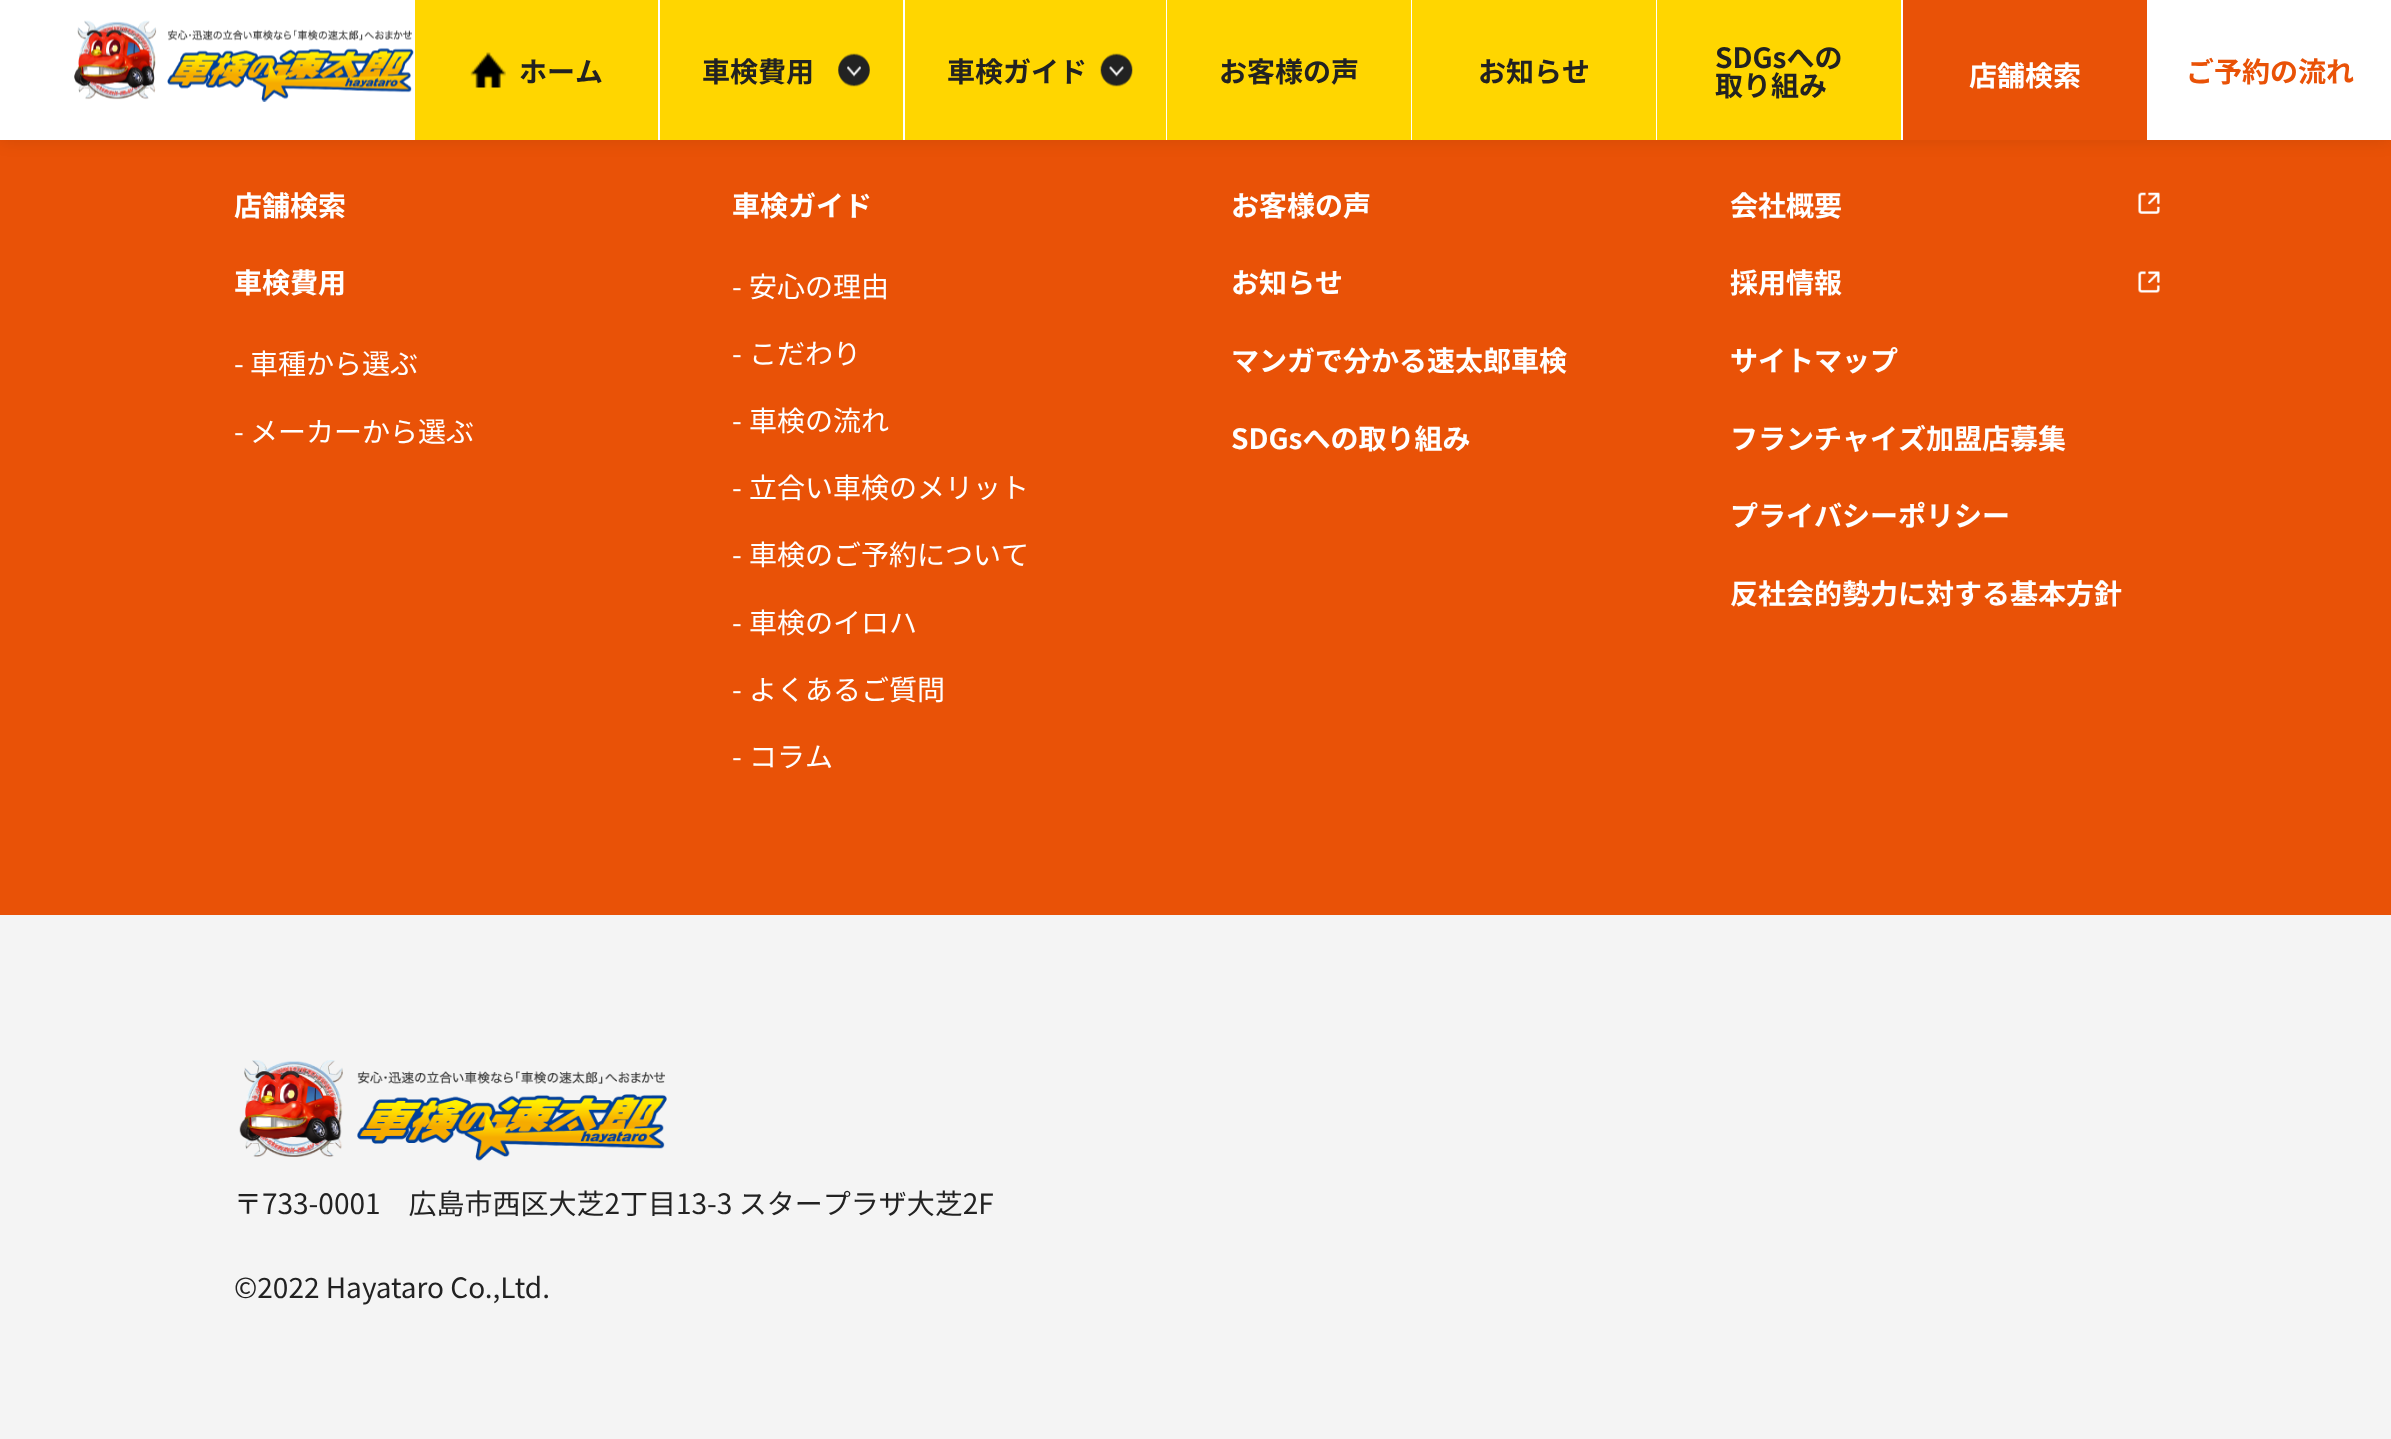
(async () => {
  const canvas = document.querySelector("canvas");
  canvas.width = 2391;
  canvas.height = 1439;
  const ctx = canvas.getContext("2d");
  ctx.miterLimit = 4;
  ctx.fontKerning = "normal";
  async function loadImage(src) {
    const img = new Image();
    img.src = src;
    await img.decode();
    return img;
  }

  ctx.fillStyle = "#f4f4f4";
  ctx.fillRect(0, 0, 2391, 1439);
  ctx.fillStyle = "#e95207";
  ctx.fillRect(0, 140, 2391, 775);
  ctx.fillStyle = "rgba(0, 0, 0, 0.1)";
  ctx.filter = "blur(9px)";
  ctx.beginPath();
  ctx.rect(0, 0, 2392, 140);
  ctx.fill();
  ctx.filter = "none";
  ctx.fillStyle = "#ffffff";
  ctx.fillRect(0, 0, 2391, 140);
  ctx.drawImage(await loadImage("img/1.png"), 74, 20, 340, 82);
  ctx.fillStyle = "#ffd600";
  ctx.fillRect(415, 0, 243, 140);
  ctx.drawImage(await loadImage("img/2.png"), 470, 52, 36, 36);
  ctx.fillRect(660, 0, 243, 140);
  ctx.drawImage(await loadImage("img/3.png"), 838, 53, 32, 34);
  ctx.fillRect(905, 0, 261, 140);
  ctx.drawImage(await loadImage("img/4.png"), 1100, 53, 33, 34);
  for (const [x, y, w, h, color] of [
    [1167, 0, 244, 140, "#ffd600"],
    [1412, 0, 244, 140, "#ffd600"],
    [1657, 0, 244, 140, "#ffd600"],
    [1903, 0, 244, 140, "#e95207"],
  ]) {
    ctx.fillStyle = color;
    ctx.fillRect(x, y, w, h);
  }
  ctx.drawImage(await loadImage("img/5.png"), 2138, 192, 22, 22);
  ctx.drawImage(await loadImage("img/6.png"), 2138, 271, 22, 22);
  ctx.drawImage(await loadImage("img/7.png"), 239, 1060, 428, 101);
  ctx.font = "bold 28px Noto Sans JP";
  ctx.fillStyle = "#222222";
  for (const [text, x, y] of [
    ["ホーム", 519, 82],
    ["車検費用", 702, 82],
    ["車検ガイド", 947, 82],
    ["お客様の声", 1219, 82],
    ["お知らせ", 1478, 82],
    ["SDGsへの", 1715, 68],
    ["取り組み", 1715, 96],
  ]) {
    ctx.fillText(text, x, y);
  }
  ctx.fillStyle = "#ffffff";
  ctx.fillText("店舗検索", 1969, 86);
  ctx.fillStyle = "#e95207";
  ctx.fillText("ご予約の流れ", 2186, 82);
  ctx.fillStyle = "#ffffff";
  ctx.fillText("店舗検索", 234, 216);
  ctx.fillText("車検費用", 234, 293);
  ctx.font = "28px Noto Sans JP";
  for (const [text, x, y] of [
    ["-", 234, 374],
    ["車種から選ぶ", 250, 374],
    ["-", 234, 442],
    ["メーカーから選ぶ", 250, 442],
  ]) {
    ctx.fillText(text, x, y);
  }
  ctx.font = "bold 28px Noto Sans JP";
  ctx.fillText("車検ガイド", 732, 216);
  ctx.font = "28px Noto Sans JP";
  for (const [text, x, y] of [
    ["-", 732, 297],
    ["安心の理由", 749, 297],
    ["-", 732, 364],
    ["こだわり", 749, 364],
    ["-", 732, 431],
    ["車検の流れ", 749, 431],
    ["-", 732, 498],
    ["立合い車検のメリット", 749, 498],
    ["-", 732, 565],
    ["車検のご予約について", 749, 565],
    ["-", 732, 633],
    ["車検のイロハ", 749, 633],
    ["-", 732, 700],
    ["よくあるご質問", 749, 700],
    ["-", 732, 767],
    ["コラム", 749, 767],
  ]) {
    ctx.fillText(text, x, y);
  }
  ctx.font = "bold 28px Noto Sans JP";
  for (const [text, x, y] of [
    ["お客様の声", 1231, 216],
    ["お知らせ", 1231, 293],
    ["マンガで分かる速太郎車検", 1231, 371],
    ["SDGsへの取り組み", 1231, 449],
    ["会社概要", 1730, 216],
    ["採用情報", 1730, 293],
    ["サイトマップ", 1730, 371],
    ["フランチャイズ加盟店募集", 1730, 449],
    ["プライバシーポリシー", 1730, 526],
    ["反社会的勢力に対する基本方針", 1730, 604],
  ]) {
    ctx.fillText(text, x, y);
  }
  ctx.font = "28px Noto Sans JP";
  ctx.fillStyle = "#222222";
  ctx.fillText("〒733-0001　広島市西区大芝2丁目13-3 スタープラザ大芝2F", 234, 1214);
  ctx.fillText("©2022 Hayataro Co.,Ltd.", 234, 1298);
})();
